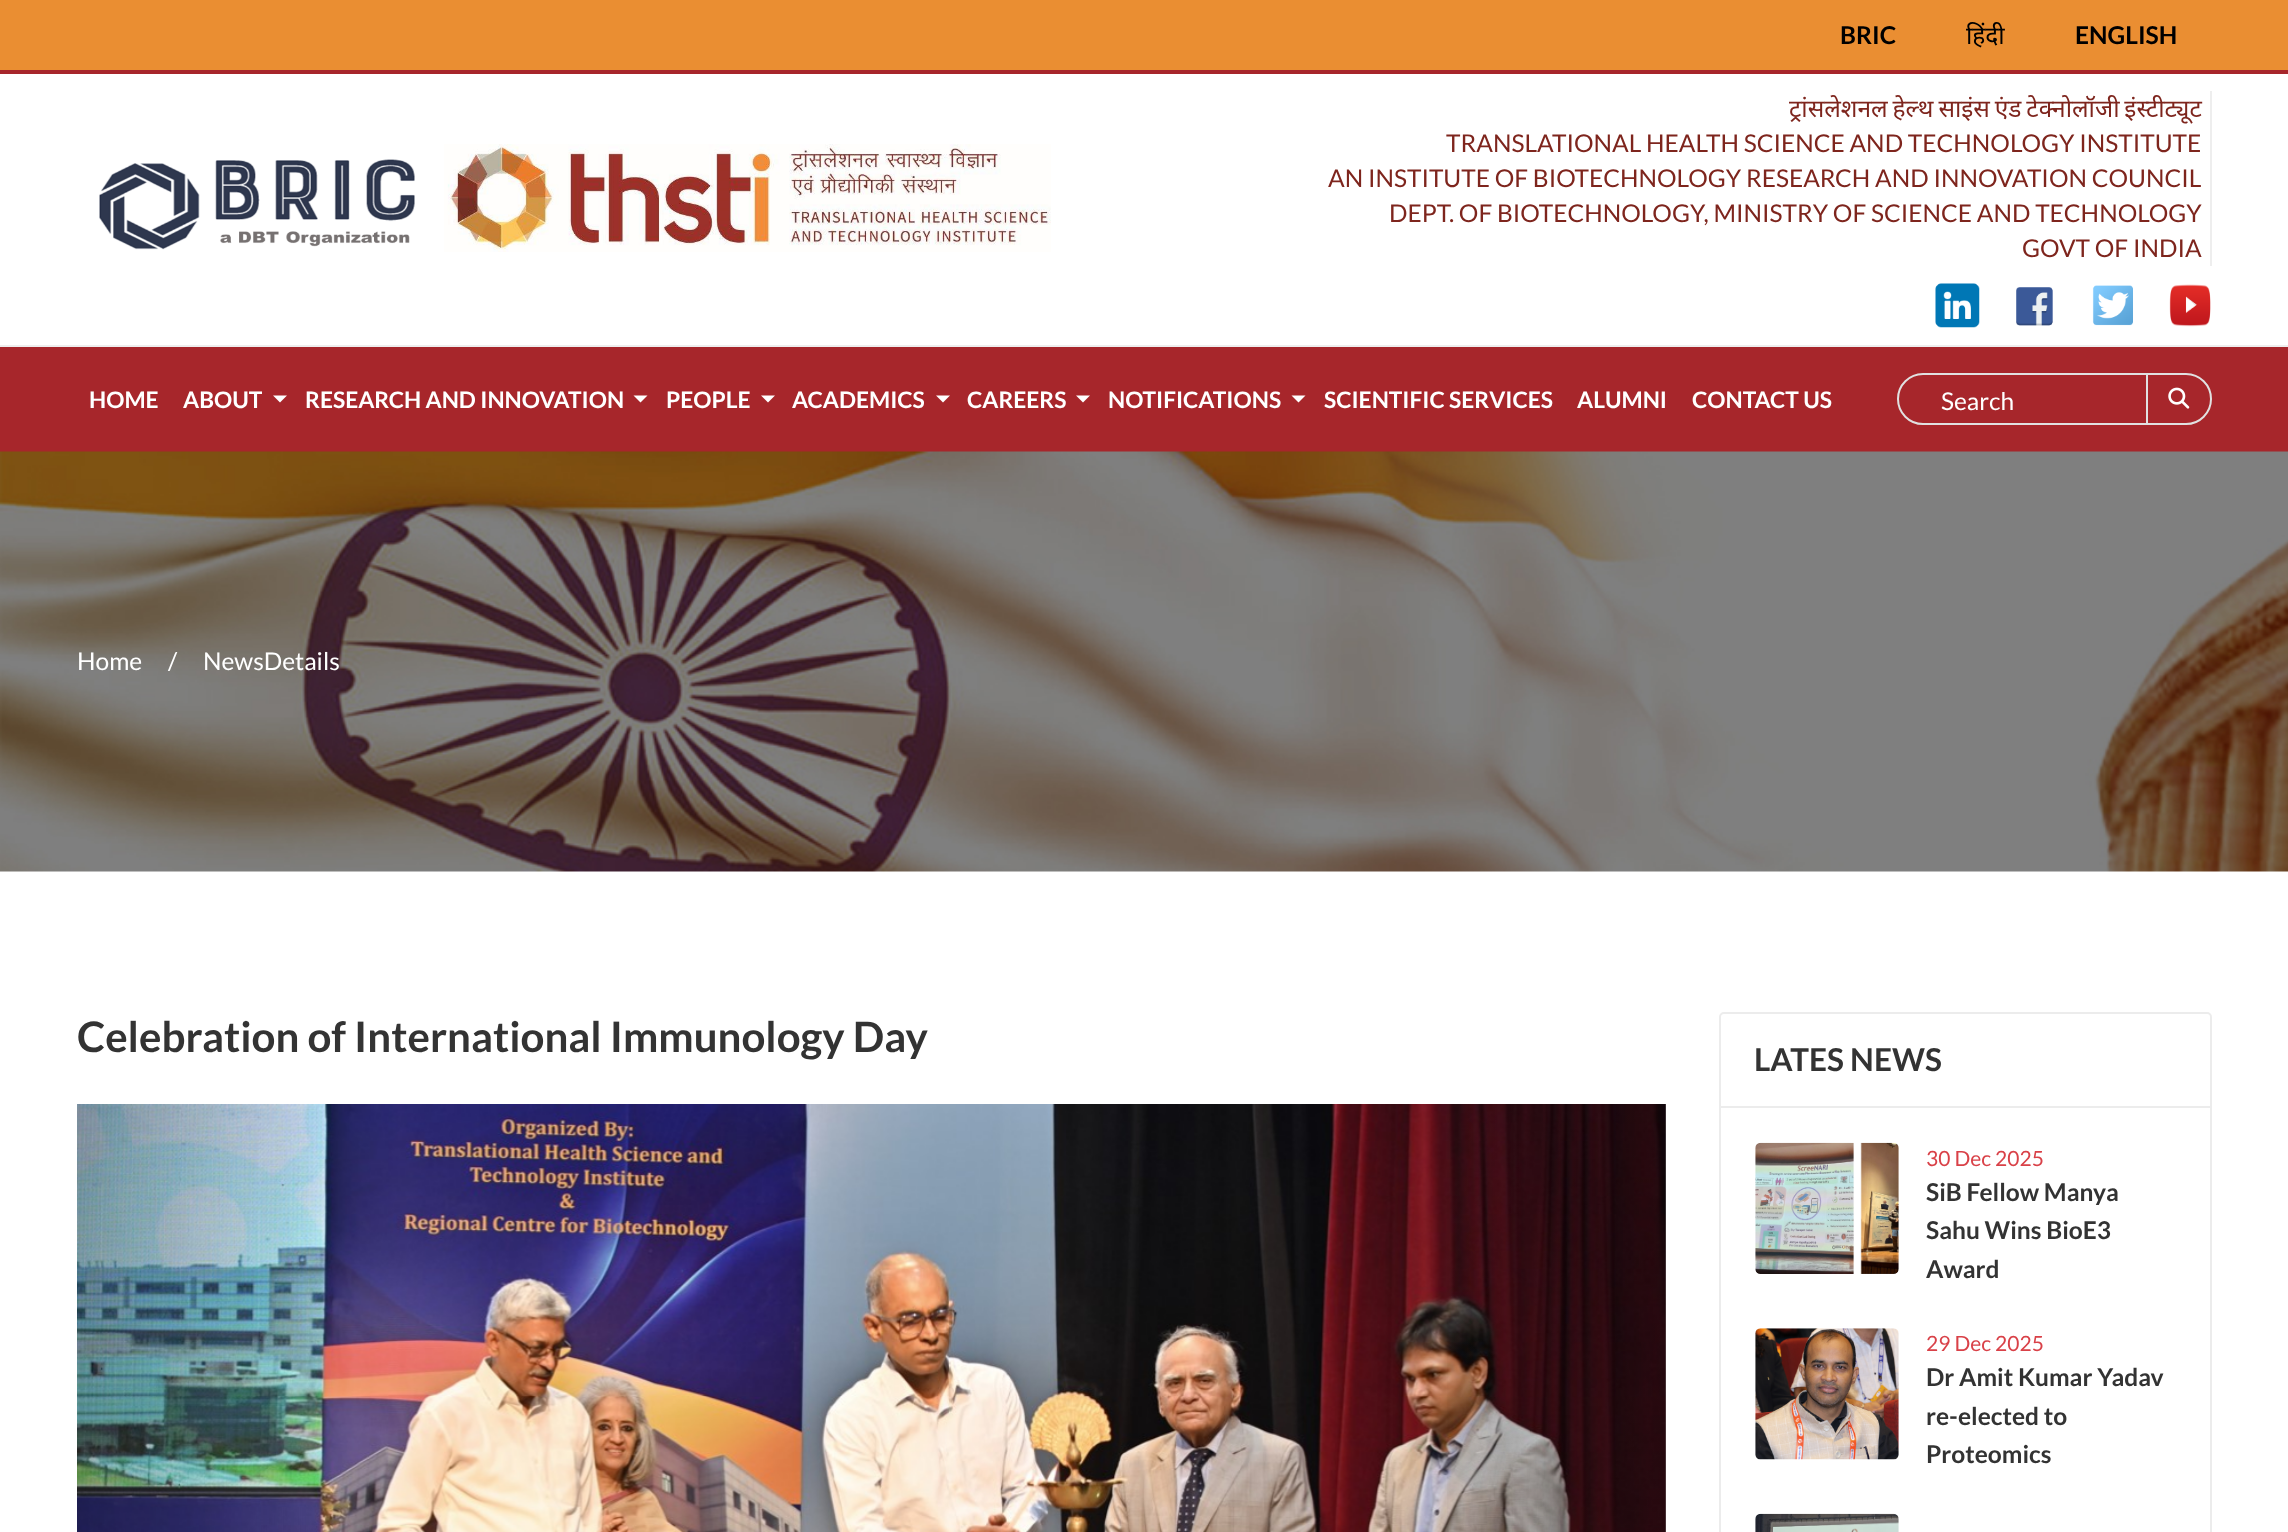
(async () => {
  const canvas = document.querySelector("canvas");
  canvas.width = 2288;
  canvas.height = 1532;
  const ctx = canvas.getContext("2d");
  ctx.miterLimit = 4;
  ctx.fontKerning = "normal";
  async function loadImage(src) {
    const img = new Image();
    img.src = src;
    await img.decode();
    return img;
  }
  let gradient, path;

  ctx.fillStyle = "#ffffff";
  ctx.fillRect(0, 0, 2288, 1532);
  ctx.fillStyle = "#ea8e32";
  ctx.fillRect(0, 0, 2288, 70);
  ctx.fillStyle = "#a7262b";
  ctx.fillRect(0, 70, 2288, 4);
  ctx.drawImage(await loadImage("img/1.png"), 99, 144, 952, 108);
  ctx.fillStyle = "#eeeeee";
  ctx.fillRect(2210, 91, 2, 175);
  ctx.drawImage(await loadImage("img/2.png"), 1935, 283, 45, 45);
  ctx.drawImage(await loadImage("img/3.png"), 2016, 287, 37, 39);
  ctx.drawImage(await loadImage("img/4.png"), 2092, 285, 41, 41);
  ctx.drawImage(await loadImage("img/5.png"), 2169, 284, 42, 43);
  ctx.fillStyle = "#a7262b";
  ctx.fillRect(0, 347, 2288, 105);
  ctx.fillStyle = "#eeeeee";
  ctx.fillRect(0, 345, 2288, 2);
  ctx.fillStyle = "#ffffff";
  path = new Path2D("M273 395.5H287L280 402.5Z");
  ctx.fill(path);
  path = new Path2D("M633.5 395.5H647.5L640.5 402.5Z");
  ctx.fill(path);
  path = new Path2D("M761 395.5H775L768 402.5Z");
  ctx.fill(path);
  path = new Path2D("M936 395.5H950L943 402.5Z");
  ctx.fill(path);
  path = new Path2D("M1076 395.5H1090L1083 402.5Z");
  ctx.fill(path);
  path = new Path2D("M1291.5 395.5H1305.5L1298.5 402.5Z");
  ctx.fill(path);
  ctx.beginPath();
  ctx.roundRect(1898, 374, 313, 50, 25);
  ctx.strokeStyle = "#e1e1e1";
  ctx.lineWidth = 2;
  ctx.stroke();
  ctx.fillStyle = "#e1e1e1";
  ctx.fillRect(2146, 375, 2, 49);
  ctx.drawImage(await loadImage("img/6.png"), 2168, 387, 22, 22);
  ctx.drawImage(await loadImage("img/7.png"), 0, 451, 2288, 421);
  ctx.drawImage(await loadImage("img/8.png"), 77, 1104, 1589, 428);
  gradient = ctx.createLinearGradient(1426, 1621, 1666, 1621);
  gradient.addColorStop(0, "rgba(0, 0, 0, 0)");
  gradient.addColorStop(1, "rgba(0, 0, 0, 0.25)");
  ctx.fillStyle = gradient;
  ctx.fillRect(1447, 1104, 219, 428);
  ctx.beginPath();
  ctx.roundRect(1720, 1013, 491, 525, 4);
  ctx.strokeStyle = "#ececec";
  ctx.stroke();
  ctx.fillStyle = "#ececec";
  ctx.fillRect(1720, 1106, 490, 2);
  ctx.drawImage(await loadImage("img/9.png"), 1755, 1142, 144, 132);
  ctx.drawImage(await loadImage("img/10.png"), 1755, 1328, 144, 132);
  ctx.drawImage(await loadImage("img/11.png"), 1755, 1513, 144, 19);
  ctx.font = "bold 24.5px Lato";
  ctx.fillStyle = "#000000";
  ctx.fillText("BRIC", 1840, 44);
  ctx.font = "24.5px Noto Sans";
  ctx.fillText("हिंदी", 1966, 44);
  ctx.font = "bold 24.5px Lato";
  ctx.fillText("ENGLISH", 2075, 44);
  ctx.wordSpacing = "-1.5px";
  ctx.font = "24.5px Noto Sans";
  ctx.fillStyle = "#7e251d";
  ctx.fillText("ट्रांसलेशनल हेल्थ साइंस एंड टेक्नोलॉजी इंस्टीट्यूट", 1789, 117);
  ctx.wordSpacing = "0px";
  ctx.font = "24.5px Lato";
  for (const [text, x, y] of [
    ["TRANSLATIONAL HEALTH SCIENCE AND TECHNOLOGY INSTITUTE", 1446, 152],
    ["AN INSTITUTE OF BIOTECHNOLOGY RESEARCH AND INNOVATION COUNCIL", 1328, 187],
    ["DEPT. OF BIOTECHNOLOGY, MINISTRY OF SCIENCE AND TECHNOLOGY", 1389, 222],
    ["GOVT OF INDIA", 2022, 257],
  ]) {
    ctx.fillText(text, x, y);
  }
  ctx.font = "bold 22.75px Lato";
  ctx.fillStyle = "#ffffff";
  for (const [text, x, y] of [
    ["HOME", 89, 408],
    ["ABOUT", 183, 408],
    ["RESEARCH AND INNOVATION", 305, 408],
    ["PEOPLE", 666, 408],
    ["ACADEMICS", 792, 408],
    ["CAREERS", 967, 408],
    ["NOTIFICATIONS", 1108, 408],
    ["SCIENTIFIC SERVICES", 1324, 408],
    ["ALUMNI", 1577, 408],
    ["CONTACT US", 1692, 408],
  ]) {
    ctx.fillText(text, x, y);
  }
  ctx.font = "24.5px Lato";
  for (const [text, x, y] of [
    ["Search", 1941, 410],
    ["Home", 77, 670],
    ["/", 168, 670],
    ["NewsDetails", 203, 670],
  ]) {
    ctx.fillText(text, x, y);
  }
  ctx.font = "bold 42px Lato";
  ctx.fillStyle = "#333333";
  ctx.fillText("Celebration of International Immunology Day", 77, 1052);
  ctx.font = "bold 31.5px Lato";
  ctx.fillText("LATES NEWS", 1754, 1071);
  ctx.font = "21px Lato";
  ctx.fillStyle = "#d94148";
  ctx.fillText("30 Dec 2025", 1926, 1166);
  ctx.font = "bold 24.5px Lato";
  ctx.fillStyle = "#333333";
  for (const [text, x, y] of [
    ["SiB Fellow Manya", 1926, 1201],
    ["Sahu Wins BioE3", 1926, 1239],
    ["Award", 1926, 1278],
  ]) {
    ctx.fillText(text, x, y);
  }
  ctx.font = "21px Lato";
  ctx.fillStyle = "#d94148";
  ctx.fillText("29 Dec 2025", 1926, 1351);
  ctx.font = "bold 24.5px Lato";
  ctx.fillStyle = "#333333";
  for (const [text, x, y] of [
    ["Dr Amit Kumar Yadav", 1926, 1386],
    ["re-elected to", 1926, 1425],
    ["Proteomics", 1926, 1463],
  ]) {
    ctx.fillText(text, x, y);
  }
})();
